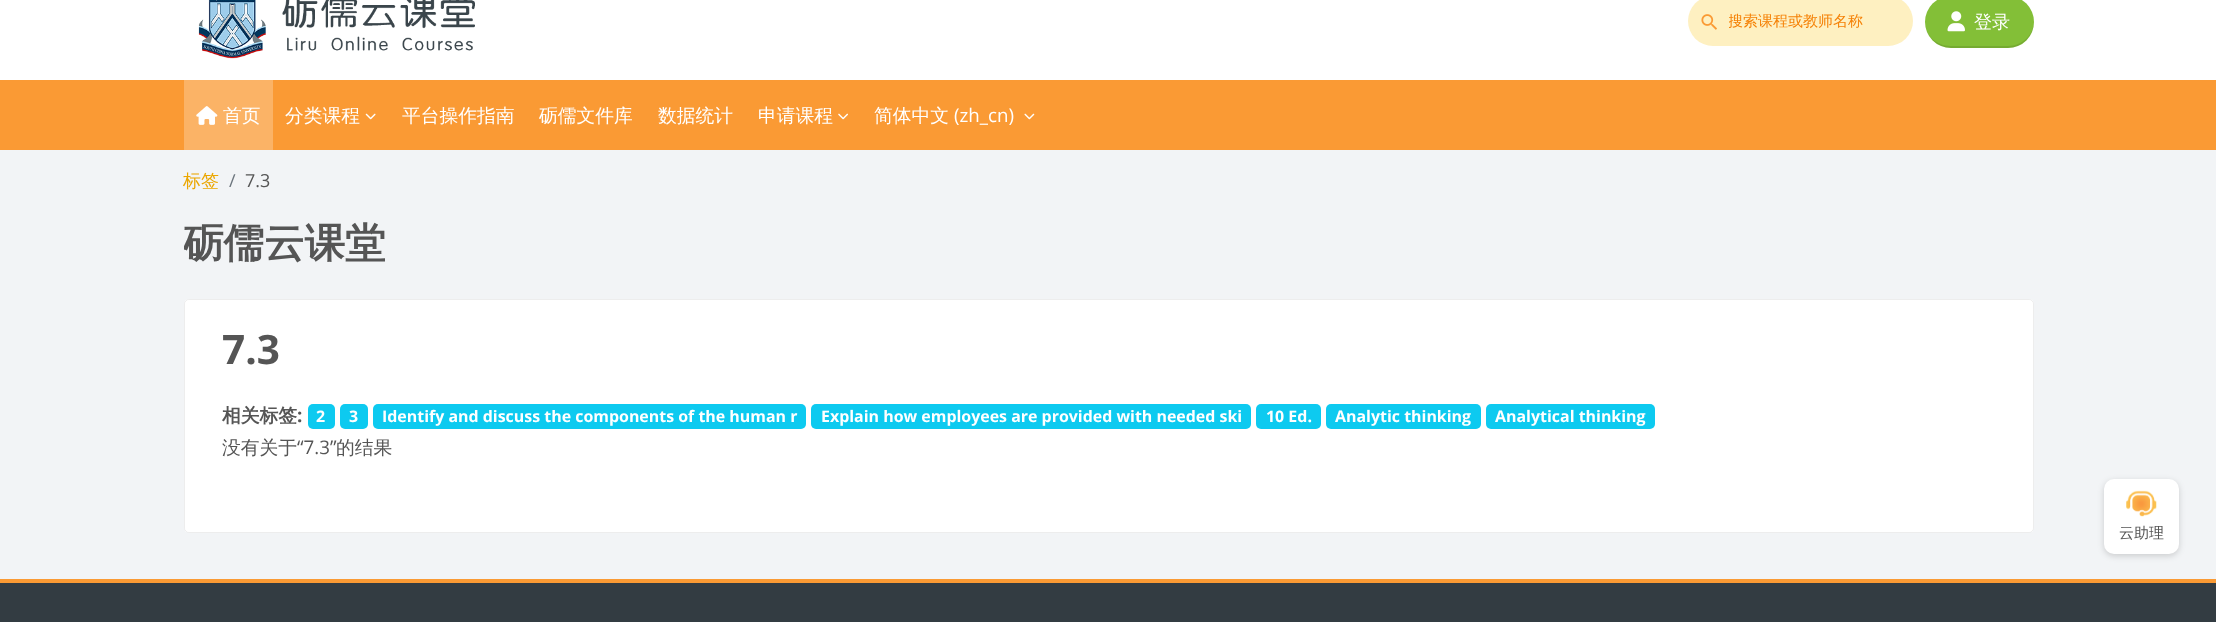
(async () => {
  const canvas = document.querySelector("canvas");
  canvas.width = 2216;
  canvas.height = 622;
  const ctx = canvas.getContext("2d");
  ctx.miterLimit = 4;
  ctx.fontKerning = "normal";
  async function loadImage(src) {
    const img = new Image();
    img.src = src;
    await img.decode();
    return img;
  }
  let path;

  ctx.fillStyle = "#f2f4f6";
  ctx.fillRect(0, 0, 2216, 622);
  ctx.fillStyle = "#ffffff";
  ctx.fillRect(0, 0, 2216, 80);
  ctx.drawImage(await loadImage("img/1.png"), 198, 0, 277, 59);
  ctx.fillStyle = "#fef0c1";
  ctx.beginPath();
  ctx.roundRect(1688, -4, 225, 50, 25);
  ctx.fill();
  ctx.drawImage(await loadImage("img/2.png"), 1701, 14, 16, 16);
  ctx.fillStyle = "#83bf37";
  ctx.beginPath();
  ctx.roundRect(1925, -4, 109, 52, 26);
  ctx.fill();
  ctx.fillStyle = "rgba(0, 0, 0, 0.1)";
  path = new Path2D("M1925 22C1925 36 1937 48 1951 48H2008C2022 48 2034 36 2034 22V21C2034 35 2022 46 2008 46H1951C1936 46 1925 35 1925 22Z");
  ctx.fill(path);
  ctx.drawImage(await loadImage("img/3.png"), 1947, 11, 18, 21);
  ctx.fillStyle = "#fa9a34";
  ctx.fillRect(0, 80, 2216, 70);
  ctx.fillStyle = "#fbb366";
  ctx.fillRect(184, 80, 89, 70);
  ctx.drawImage(await loadImage("img/4.png"), 196, 106, 22, 19);
  ctx.drawImage(await loadImage("img/5.png"), 365, 113, 11, 7);
  ctx.drawImage(await loadImage("img/6.png"), 838, 113, 10, 7);
  ctx.drawImage(await loadImage("img/7.png"), 1024, 113, 11, 7);
  ctx.fillStyle = "#ffffff";
  ctx.beginPath();
  ctx.roundRect(184, 299, 1850, 234, 5);
  ctx.fill();
  ctx.beginPath();
  ctx.roundRect(184.5, 299.5, 1849, 233, 4.5);
  ctx.strokeStyle = "rgba(0, 0, 0, 0.07)";
  ctx.stroke();
  ctx.fillStyle = "#0dcaf0";
  ctx.beginPath();
  ctx.roundRect(308, 404, 27, 25, 5);
  ctx.fill();
  ctx.beginPath();
  ctx.roundRect(340, 404, 28, 25, 5);
  ctx.fill();
  ctx.beginPath();
  ctx.roundRect(373, 404, 433, 25, 5);
  ctx.fill();
  ctx.beginPath();
  ctx.roundRect(811, 404, 440, 25, 5);
  ctx.fill();
  ctx.beginPath();
  ctx.roundRect(1256, 404, 65, 25, 5);
  ctx.fill();
  ctx.beginPath();
  ctx.roundRect(1326, 404, 155, 25, 5);
  ctx.fill();
  ctx.beginPath();
  ctx.roundRect(1486, 404, 169, 25, 5);
  ctx.fill();
  ctx.fillStyle = "rgba(0, 0, 0, 0.16)";
  ctx.filter = "blur(3px)";
  ctx.beginPath();
  ctx.roundRect(2104, 481, 75, 75, 10);
  ctx.fill();
  ctx.filter = "none";
  ctx.fillStyle = "#ffffff";
  ctx.beginPath();
  ctx.roundRect(2104, 479, 75, 75, 10);
  ctx.fill();
  ctx.drawImage(await loadImage("img/8.png"), 2126, 490, 31, 27);
  ctx.fillStyle = "#333c42";
  ctx.fillRect(0, 583, 2216, 39);
  ctx.fillStyle = "#fa9a34";
  ctx.fillRect(0, 579, 2216, 4);
  ctx.save();
  ctx.beginPath();
  ctx.rect(1729, 10, 181, 23);
  ctx.clip();
  ctx.font = "500 15px WenQuanYi Zen Hei";
  ctx.fillStyle = "#f58106";
  ctx.fillText("搜索课程或教师名称", 1728, 26);
  ctx.restore();
  ctx.font = "500 18px WenQuanYi Zen Hei";
  ctx.fillStyle = "#ffffff";
  ctx.fillText("登录", 1974, 28);
  ctx.font = "500 18.75px WenQuanYi Zen Hei";
  for (const [text, x, y] of [
    ["首页", 223, 122],
    ["分类课程", 285, 122],
    ["平台操作指南", 402, 122],
    ["砺儒文件库", 539, 122],
    ["数据统计", 658, 122],
    ["申请课程", 758, 122],
    ["简体中文", 874, 122],
  ]) {
    ctx.fillText(text, x, y);
  }
  ctx.font = "18.75px Open Sans";
  ctx.fillText("(zh_cn)", 954, 122);
  ctx.font = "500 18px WenQuanYi Zen Hei";
  ctx.fillStyle = "#eba600";
  ctx.fillText("标签", 183, 187);
  ctx.font = "18px Open Sans";
  ctx.fillStyle = "#6c757d";
  ctx.fillText("/", 229, 187);
  ctx.fillStyle = "#555555";
  ctx.fillText("7.3", 245, 187);
  ctx.save();
  ctx.beginPath();
  ctx.rect(184, 185, 201, 114);
  ctx.clip();
  ctx.font = "bold 40.5px WenQuanYi Zen Hei";
  ctx.fillText("砺儒云课堂", 183, 257);
  ctx.restore();
  ctx.font = "bold 40.5px Open Sans";
  ctx.fillText("7.3", 222, 364);
  ctx.font = "bold 18.75px WenQuanYi Zen Hei";
  ctx.fillText("相关标签", 222, 422);
  ctx.font = "bold 18.75px Open Sans";
  ctx.fillText(":", 297, 422);
  ctx.font = "bold 15.95px Open Sans";
  ctx.fillStyle = "#ffffff";
  for (const [text, x, y] of [
    ["2", 316, 422],
    ["3", 349, 422],
    ["Identify and discuss the components of the human r", 382, 422],
    ["Explain how employees are provided with needed ski", 821, 422],
    ["10 Ed.", 1266, 422],
    ["Analytic thinking", 1335, 422],
    ["Analytical thinking", 1495, 422],
  ]) {
    ctx.fillText(text, x, y);
  }
  ctx.font = "500 18.75px WenQuanYi Zen Hei";
  ctx.fillStyle = "#555555";
  ctx.fillText("没有关于", 222, 454);
  ctx.font = "18.75px Open Sans";
  ctx.fillText("“7.3”", 297, 454);
  ctx.font = "500 18.75px WenQuanYi Zen Hei";
  ctx.fillText("的结果", 336, 454);
  ctx.font = "500 15px WenQuanYi Zen Hei";
  ctx.fillText("云助理", 2119, 538);
})();
